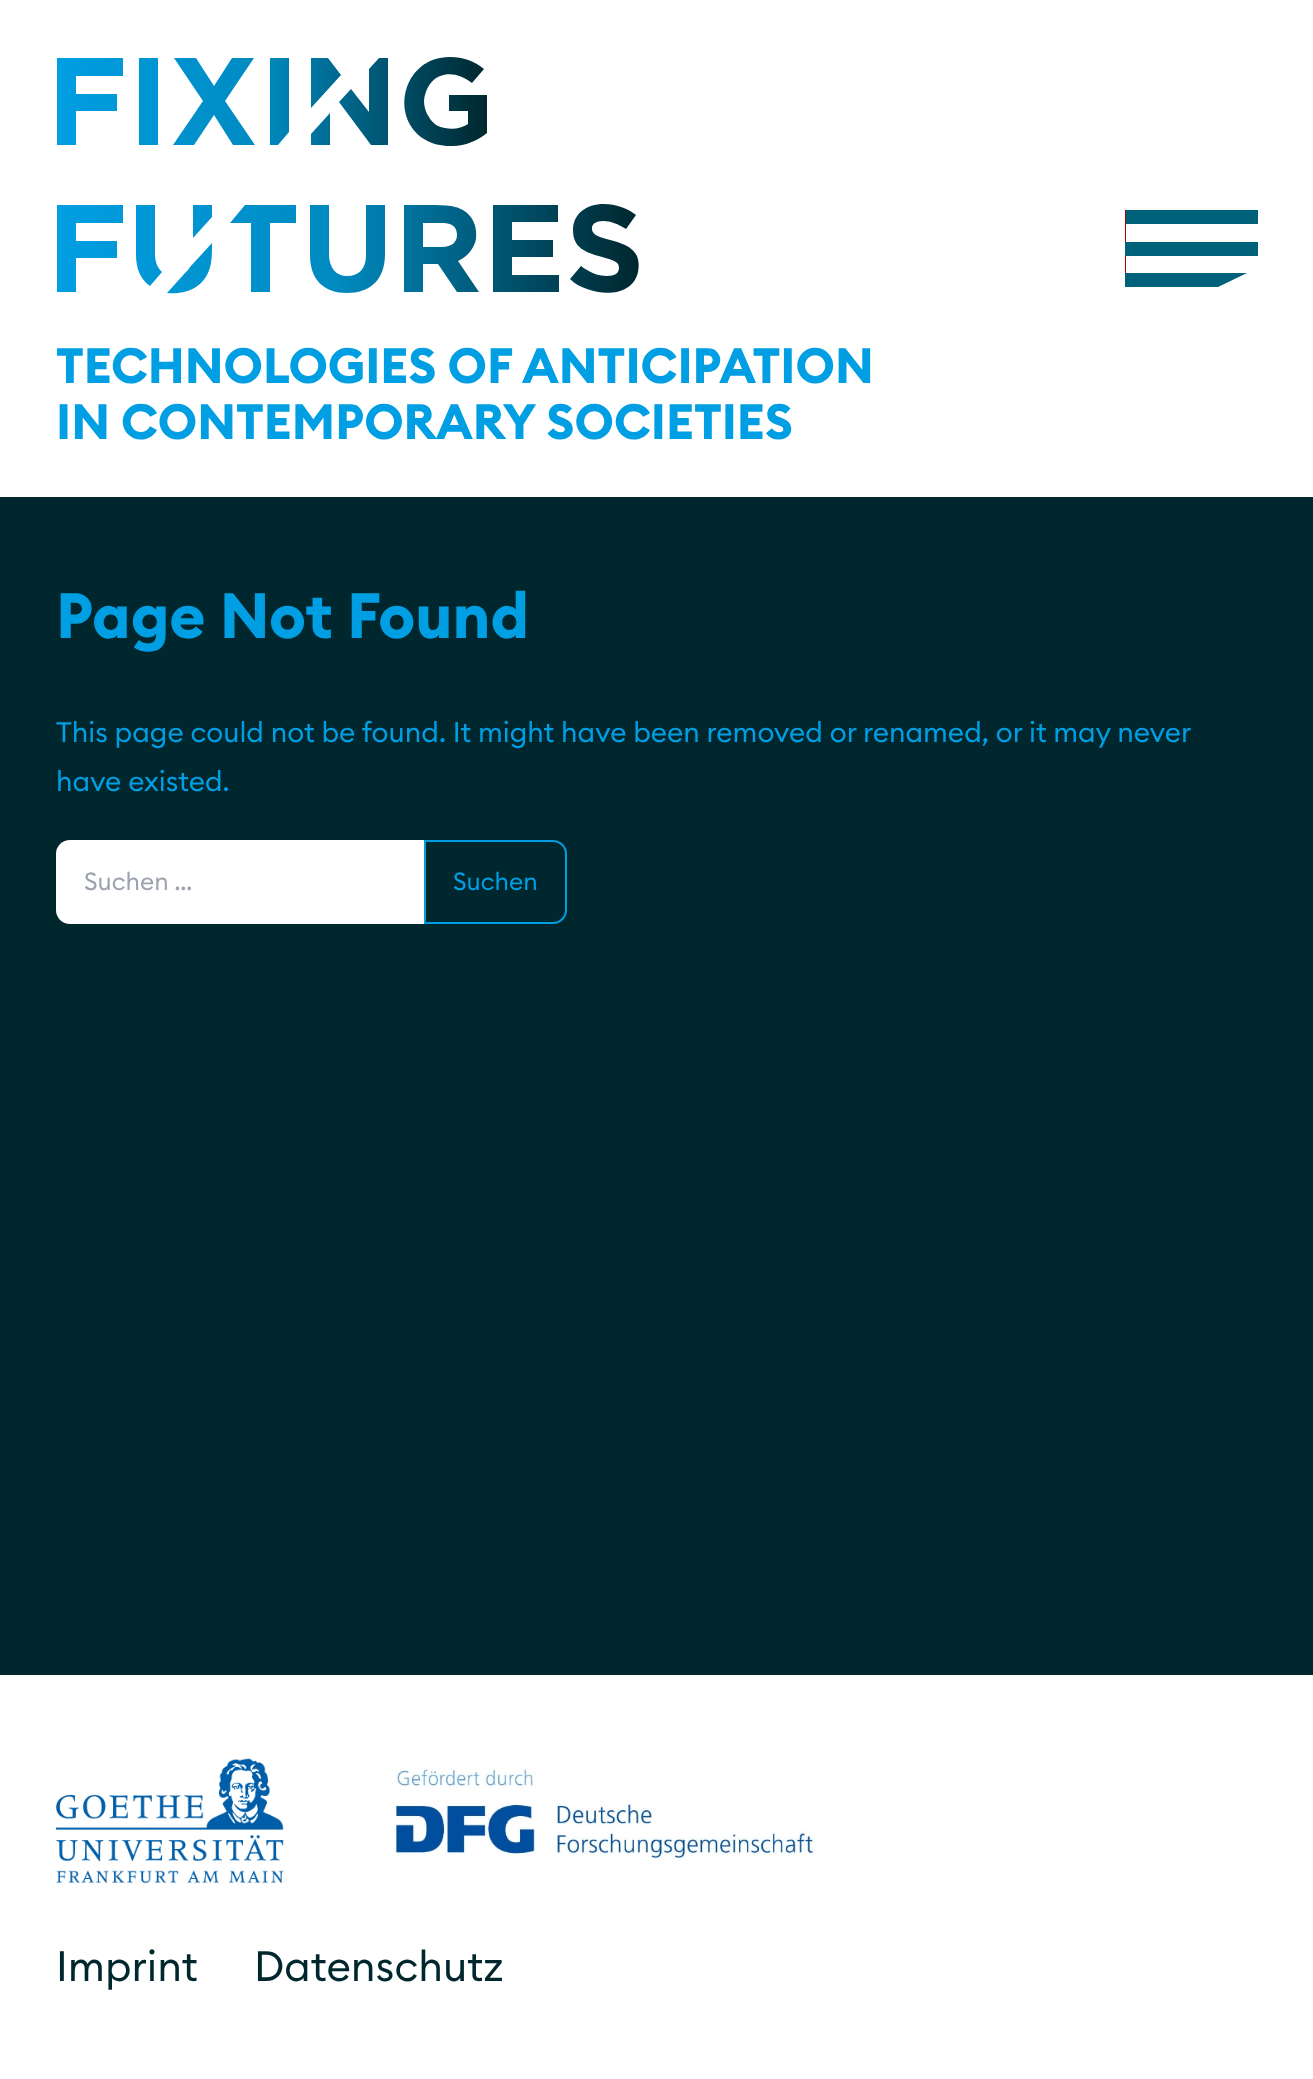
(async () => {
  const canvas = document.querySelector("canvas");
  canvas.width = 1313;
  canvas.height = 2079;
  const ctx = canvas.getContext("2d");
  ctx.miterLimit = 4;
  ctx.fontKerning = "normal";
  async function loadImage(src) {
    const img = new Image();
    img.src = src;
    await img.decode();
    return img;
  }
  let gradient, path;

  ctx.fillStyle = "#ffffff";
  ctx.fillRect(0, 0, 1313, 2079);
  ctx.fillStyle = "#00627a";
  ctx.fillRect(1126, 210, 132, 14);
  ctx.fillStyle = "#aa0000";
  path = new Path2D("M1126 210H1258V268V210H1125V287H1126Z");
  ctx.fill(path);
  ctx.fillStyle = "#00627a";
  ctx.fillRect(1125, 242, 133, 14);
  path = new Path2D("M1247 273L1218 287H1125V273Z");
  ctx.fill(path);
  gradient = ctx.createLinearGradient(56, 249, 641, 249);
  gradient.addColorStop(0, "#009ee2");
  gradient.addColorStop(0.48, "#008ac0");
  gradient.addColorStop(1, "#00262d");
  ctx.fillStyle = gradient;
  path = new Path2D("M592 229C592 242 628 237 637 256C639 261 639 267 638 272C633 295 605 296 587 289C581 287 575 284 570 279L581 266C589 272 597 276 607 276C615 276 619 273 619 268C619 263 617 261 602 257C585 252 573 248 573 230C573 214 586 204 604 204C616 204 627 208 636 215L626 229C618 224 611 221 603 221C596 221 592 224 592 228ZM76 223V241H117V258H76V292H57V205H123V223ZM162 272L150 286C141 280 136 269 136 255V205H155V254C155 263 158 268 162 272ZM212 217L193 238V205H212ZM230 223L245 205H296V223H270V292H251V223ZM385 254C385 280 370 293 347 293C324 293 310 280 310 255V205H329V254C329 268 336 276 347 276C359 276 366 269 366 255V205H385ZM479 292H457L438 264H423V292H404V205H430C437 205 445 205 451 206C469 209 478 222 476 239C474 249 467 257 458 261ZM493 292V205H558V222H512V240H553V257H512V275H559V292ZM457 235C457 222 445 223 436 223H423V247H442C452 247 457 242 457 235ZM167 293L185 273L188 270L190 267L212 243C212 250 212 257 211 263C207 286 188 295 167 293Z");
  ctx.fill(path, "evenodd");
  gradient = ctx.createLinearGradient(56, 102, 489, 102);
  gradient.addColorStop(0, "#009ee2");
  gradient.addColorStop(0.48, "#008ac0");
  gradient.addColorStop(1, "#00262d");
  ctx.fillStyle = gradient;
  path = new Path2D("M468 111H449V95H487V133C477 141 463 147 450 146C441 146 432 144 424 139C391 118 402 65 440 58C456 55 472 59 484 69L472 83C452 67 427 73 424 101C424 107 426 113 429 117C432 123 438 127 445 128C453 130 462 128 468 124ZM76 76V94H117V111H76V145H57V58H123V76ZM139 145V58H158V145ZM255 145H233L214 115L194 145H173L203 101L174 58H196L214 86L232 58H254L225 101ZM289 132L278 145H270V58H289ZM341 75L311 108V58H328ZM371 145L339 102L351 89L369 112V69L379 58H388V145ZM311 134L330 113V145H311Z");
  ctx.fill(path, "evenodd");
  ctx.fillStyle = "#00272e";
  ctx.fillRect(0, 497, 1313, 1178);
  ctx.fillStyle = "#ffffff";
  ctx.beginPath();
  ctx.roundRect(56, 840, 368, 84, [14, 0, 0, 14]);
  ctx.fill();
  ctx.beginPath();
  ctx.roundRect(425, 841, 141, 82, [0, 13, 13, 0]);
  ctx.strokeStyle = "#009de0";
  ctx.lineWidth = 2;
  ctx.stroke();
  ctx.drawImage(await loadImage("img/1.png"), 56, 1758, 228, 125);
  ctx.drawImage(await loadImage("img/2.png"), 395, 1767, 421, 93);
  ctx.font = "bold 49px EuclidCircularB";
  ctx.fillStyle = "#009ee2";
  ctx.fillText("TECHNOLOGIES OF ANTICIPATION", 56, 383);
  ctx.fillText("IN CONTEMPORARY SOCIETIES", 56, 439);
  ctx.font = "bold 63px EuclidCircularB";
  ctx.fillText("Page Not Found", 56, 638);
  ctx.font = "28px EuclidCircularB";
  ctx.fillText("This page could not be found. It might have been removed or renamed, or it may never", 56, 742);
  ctx.fillText("have existed.", 56, 791);
  ctx.font = "24.5px EuclidCircularB";
  ctx.fillStyle = "#9ca3af";
  ctx.fillText("Suchen …", 84, 890);
  ctx.fillStyle = "#009ee2";
  ctx.fillText("Suchen", 453, 890);
  ctx.font = "42px EuclidCircularB";
  ctx.fillStyle = "#00272e";
  ctx.fillText("Imprint", 56, 1981);
  ctx.fillText("Datenschutz", 254, 1981);
})();
